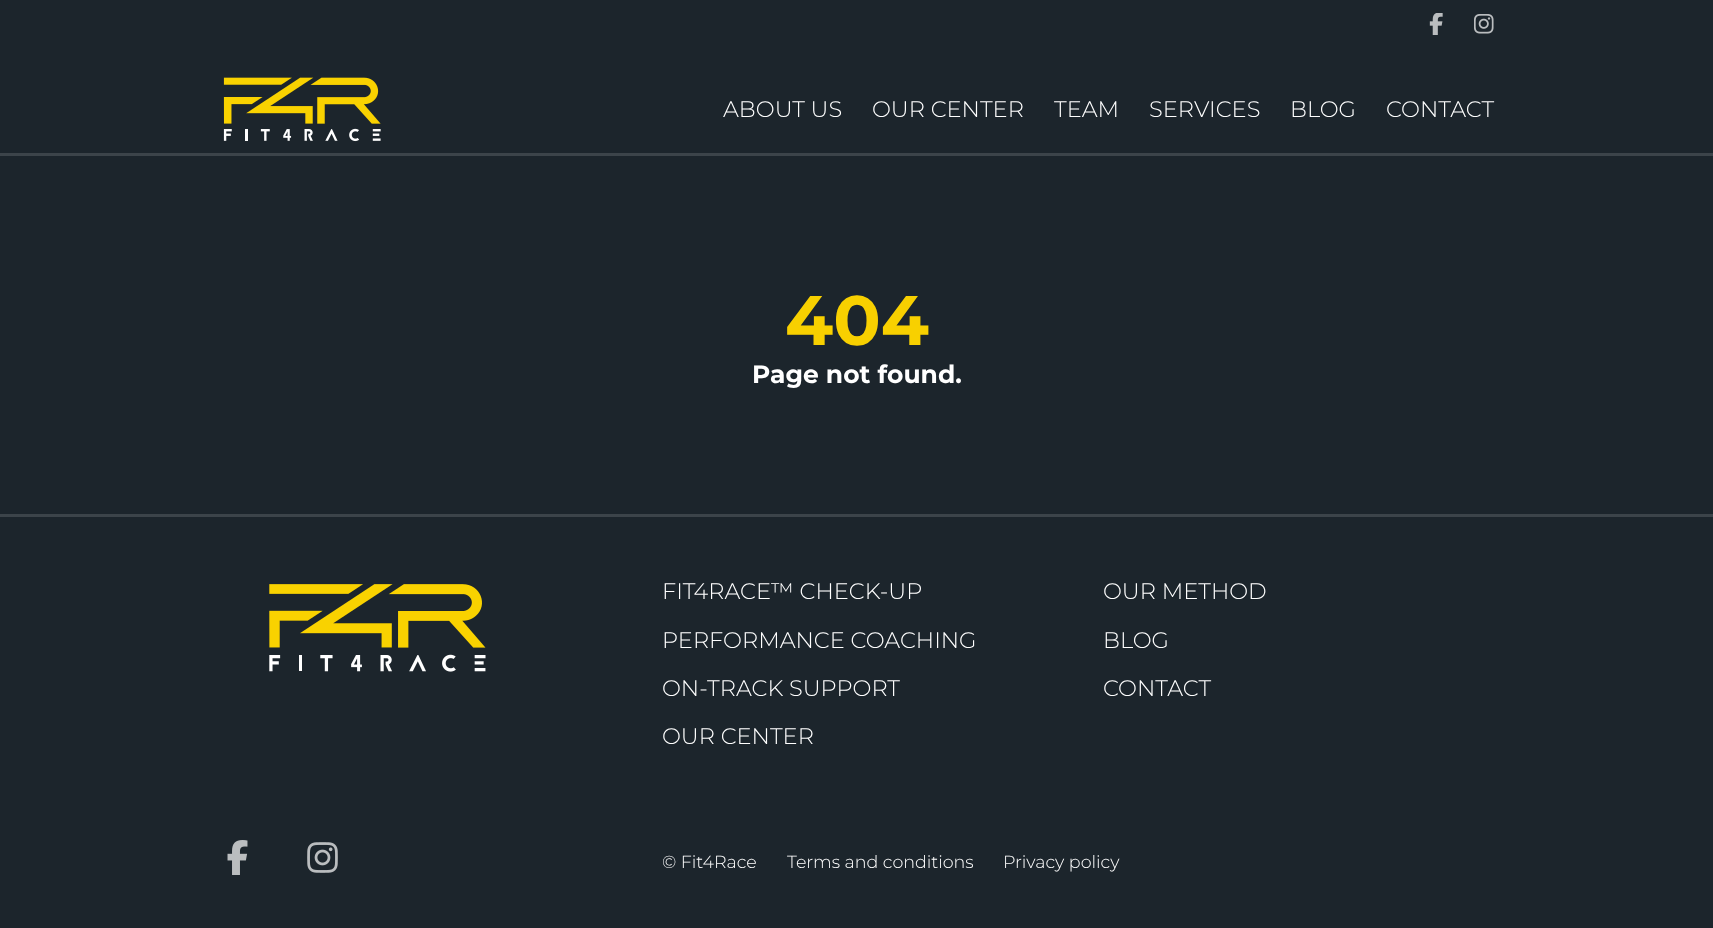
(async () => {
  const canvas = document.querySelector("canvas");
  canvas.width = 1713;
  canvas.height = 928;
  const ctx = canvas.getContext("2d");
  ctx.miterLimit = 4;
  ctx.fontKerning = "normal";
  async function loadImage(src) {
    const img = new Image();
    img.src = src;
    await img.decode();
    return img;
  }

  ctx.fillStyle = "#1c252c";
  ctx.fillRect(0, 0, 1713, 928);
  ctx.fillStyle = "#3c444a";
  ctx.fillRect(0, 153, 1713, 3);
  ctx.drawImage(await loadImage("img/1.png"), 1429, 13, 14, 22);
  ctx.drawImage(await loadImage("img/2.png"), 1474, 14, 20, 20);
  ctx.drawImage(await loadImage("img/3.png"), 223, 77, 158, 65);
  ctx.fillRect(0, 514, 1713, 3);
  ctx.drawImage(await loadImage("img/4.png"), 269, 584, 217, 88);
  ctx.drawImage(await loadImage("img/5.png"), 227, 840, 21, 35);
  ctx.drawImage(await loadImage("img/6.png"), 307, 842, 31, 31);
  ctx.font = "300 22.5px Montserrat";
  ctx.fillStyle = "#ffffff";
  for (const [text, x, y] of [
    ["ABOUT US", 723, 117],
    ["OUR CENTER", 872, 117],
    ["TEAM", 1054, 117],
    ["SERVICES", 1149, 117],
    ["BLOG", 1290, 117],
    ["CONTACT", 1386, 117],
  ]) {
    ctx.fillText(text, x, y);
  }
  ctx.font = "bold 70px Montserrat";
  ctx.fillStyle = "#f8d000";
  ctx.fillText("404", 785, 345);
  ctx.font = "bold 25px Montserrat";
  ctx.fillStyle = "#ffffff";
  ctx.fillText("Page not found.", 752, 383);
  ctx.font = "300 22.5px Montserrat";
  for (const [text, x, y] of [
    ["FIT4RACE™ CHECK-UP", 662, 599],
    ["OUR METHOD", 1103, 599],
    ["PERFORMANCE COACHING", 662, 648],
    ["BLOG", 1103, 648],
    ["ON-TRACK SUPPORT", 662, 696],
    ["CONTACT", 1103, 696],
    ["OUR CENTER", 662, 744],
  ]) {
    ctx.fillText(text, x, y);
  }
  ctx.font = "300 17.5px Montserrat";
  for (const [text, x, y] of [
    ["© Fit4Race", 662, 868],
    ["Terms and conditions", 787, 868],
    ["Privacy policy", 1003, 868],
  ]) {
    ctx.fillText(text, x, y);
  }
})();
